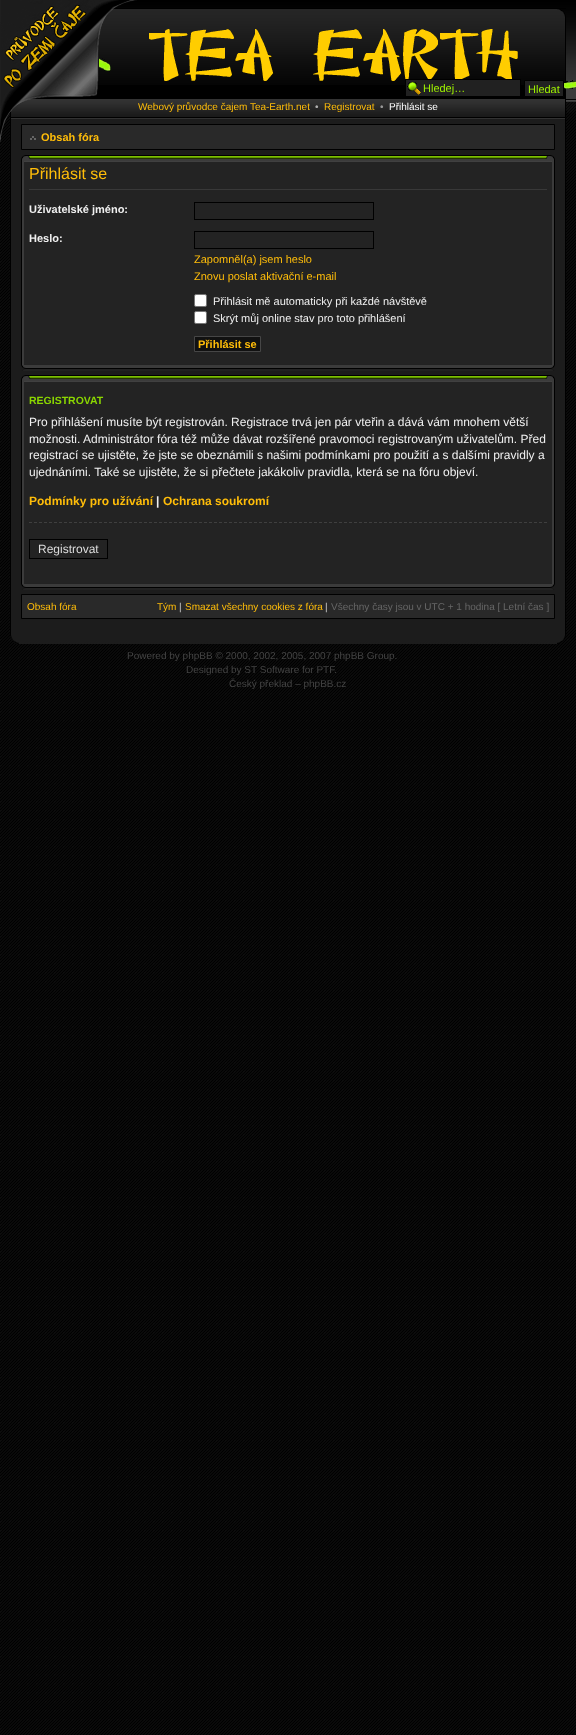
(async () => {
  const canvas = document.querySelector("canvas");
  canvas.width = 576;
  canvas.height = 1735;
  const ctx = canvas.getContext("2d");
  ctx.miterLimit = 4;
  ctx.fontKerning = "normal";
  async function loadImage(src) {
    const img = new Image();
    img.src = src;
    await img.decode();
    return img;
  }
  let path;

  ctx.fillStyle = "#ffffff";
  ctx.fillRect(0, 0, 576, 1735);
  ctx.drawImage(await loadImage("img/1.png"), 0, 696, 576, 1039);
  ctx.drawImage(await loadImage("img/2.png"), 0, 113, 576, 583);
  ctx.fillStyle = "#1c1c1c";
  ctx.fillRect(11, 119, 554, 516);
  ctx.drawImage(await loadImage("img/11.png"), 11, 99, 554, 20);
  ctx.fillStyle = "#000000";
  ctx.fillRect(10, 112, 1, 523);
  ctx.fillStyle = "#292929";
  ctx.beginPath();
  ctx.rect(21.5, 124.5, 533, 25);
  ctx.fill();
  ctx.strokeStyle = "#000000";
  ctx.stroke();
  ctx.drawImage(await loadImage("img/3.png"), 0, 0, 22, 142);
  ctx.drawImage(await loadImage("img/5.png"), 116, 0, 460, 82);
  ctx.fillStyle = "#000000";
  ctx.fillRect(38, 8, 528, 91);
  ctx.drawImage(await loadImage("img/6.png"), 98, 9, 467, 76);
  ctx.fillStyle = "#3b3b3b";
  ctx.fillRect(566, 88, 10, 11);
  ctx.drawImage(await loadImage("img/7.png"), 557, 9, 9, 73);
  ctx.drawImage(await loadImage("img/8.png"), 99, 29, 477, 60);
  ctx.drawImage(await loadImage("img/4.png"), 22, 0, 115, 102);
  ctx.fillStyle = "#212121";
  ctx.fillRect(406, 80, 114, 16);
  ctx.drawImage(await loadImage("img/9.png"), 407, 82, 14, 13);
  ctx.strokeRect(405.5, 79.5, 115, 17);
  ctx.beginPath();
  ctx.rect(524.5, 80.5, 39, 16);
  ctx.fill();
  ctx.stroke();
  ctx.drawImage(await loadImage("img/10.png"), 566, 99, 10, 14);
  ctx.fillStyle = "#000000";
  ctx.fillRect(565, 99, 1, 536);
  ctx.drawImage(await loadImage("img/12.png"), 30, 136, 6, 4);
  ctx.drawImage(await loadImage("img/13.png"), 31, 155, 514, 6);
  ctx.drawImage(await loadImage("img/14.png"), 21, 155, 10, 6);
  ctx.drawImage(await loadImage("img/15.png"), 545, 155, 10, 6);
  for (const [x, y, w, h, color] of [
    [22, 161, 532, 204, "#3b3b3b"],
    [554, 161, 1, 204, "#000000"],
    [21, 161, 1, 204, "#000000"],
    [24, 162, 528, 202, "#232323"],
    [24, 161, 528, 1, "#404040"],
    [24, 364, 528, 1, "#222222"],
    [29, 189, 518, 1, "#383838"],
  ]) {
    ctx.fillStyle = color;
    ctx.fillRect(x, y, w, h);
  }
  ctx.strokeRect(194.5, 202.5, 179, 17);
  ctx.strokeRect(194.5, 231.5, 179, 17);
  ctx.fillStyle = "#ffffff";
  ctx.beginPath();
  ctx.roundRect(194.5, 294.5, 12, 12, 1.5);
  ctx.fill();
  ctx.strokeStyle = "#767676";
  ctx.stroke();
  ctx.beginPath();
  ctx.roundRect(194.5, 311.5, 12, 12, 1.5);
  ctx.fill();
  ctx.stroke();
  ctx.fillStyle = "#111111";
  ctx.beginPath();
  ctx.rect(194.5, 336.5, 66, 15);
  ctx.fill();
  ctx.strokeStyle = "#464646";
  ctx.stroke();
  ctx.drawImage(await loadImage("img/16.png"), 26, 365, 524, 6);
  ctx.drawImage(await loadImage("img/17.png"), 21, 365, 5, 6);
  ctx.drawImage(await loadImage("img/18.png"), 550, 365, 5, 6);
  ctx.drawImage(await loadImage("img/13.png"), 31, 375, 514, 6);
  ctx.drawImage(await loadImage("img/14.png"), 21, 375, 10, 6);
  ctx.drawImage(await loadImage("img/15.png"), 545, 375, 10, 6);
  for (const [x, y, w, h, color] of [
    [22, 381, 532, 203, "#3b3b3b"],
    [554, 381, 1, 203, "#000000"],
    [21, 381, 1, 203, "#000000"],
    [24, 382, 528, 201, "#232323"],
    [24, 381, 528, 1, "#404040"],
    [24, 583, 528, 1, "#222222"],
  ]) {
    ctx.fillStyle = color;
    ctx.fillRect(x, y, w, h);
  }
  path = new Path2D("M29 522.5H547");
  ctx.strokeStyle = "#3f3f3f";
  ctx.setLineDash([3, 2]);
  ctx.stroke(path);
  ctx.strokeStyle = "#000000";
  ctx.setLineDash([]);
  ctx.strokeRect(29.5, 539.5, 78, 19);
  ctx.drawImage(await loadImage("img/16.png"), 26, 584, 524, 6);
  ctx.drawImage(await loadImage("img/17.png"), 21, 584, 5, 6);
  ctx.drawImage(await loadImage("img/18.png"), 550, 584, 5, 6);
  ctx.fillStyle = "#292929";
  ctx.beginPath();
  ctx.rect(21.5, 594.5, 533, 24);
  ctx.fill();
  ctx.stroke();
  ctx.drawImage(await loadImage("img/19.png"), 10, 635, 9, 9);
  ctx.drawImage(await loadImage("img/20.png"), 557, 635, 9, 9);
  ctx.fillStyle = "#1c1c1c";
  ctx.fillRect(19, 635, 538, 9);
  ctx.font = "11px Liberation Sans";
  ctx.fillStyle = "#9ef000";
  ctx.fillText("Hledej…", 423, 92);
  ctx.fillText("Hledat", 528, 93);
  ctx.font = "10px Liberation Sans";
  ctx.fillStyle = "#ffbd09";
  ctx.fillText("Webový průvodce čajem Tea-Earth.net", 138, 110);
  ctx.fillStyle = "#b0b0b0";
  ctx.fillText("•", 315, 110);
  ctx.fillStyle = "#ffbd09";
  ctx.fillText("Registrovat", 324, 110);
  ctx.fillStyle = "#999999";
  ctx.fillText("•", 380, 110);
  ctx.fillStyle = "#ffffff";
  ctx.fillText("Přihlásit se", 389, 110);
  ctx.font = "bold 11px Liberation Sans";
  ctx.fillStyle = "#ffbd09";
  ctx.fillText("Obsah fóra", 41, 141);
  ctx.font = "16px Liberation Sans";
  ctx.fillText("Přihlásit se", 29, 179);
  ctx.font = "bold 11px Liberation Sans";
  ctx.fillStyle = "#f0f0f0";
  ctx.fillText("Uživatelské jméno:", 29, 213);
  ctx.fillText("Heslo:", 29, 242);
  ctx.font = "11px Liberation Sans";
  ctx.fillStyle = "#ffbd09";
  ctx.fillText("Zapomněl(a) jsem heslo", 194, 263);
  ctx.fillText("Znovu poslat aktivační e-mail", 194, 280);
  ctx.fillStyle = "#f0f0f0";
  ctx.fillText("Přihlásit mě automaticky při každé návštěvě", 213, 305);
  ctx.fillText("Skrýt můj online stav pro toto přihlášení", 213, 322);
  ctx.font = "bold 11px Liberation Sans";
  ctx.fillStyle = "#ffbd09";
  ctx.fillText("Přihlásit se", 198, 348);
  ctx.font = "bold 10.5px Liberation Sans";
  ctx.fillStyle = "#8bd700";
  ctx.fillText("REGISTROVAT", 29, 404);
  ctx.font = "12px Liberation Sans";
  ctx.fillStyle = "#f0f0f0";
  for (const [text, x, y] of [
    ["Pro přihlášení musíte být registrován. Registrace trvá jen pár vteřin a dává vám mnohem větší", 29, 426],
    ["možnosti. Administrátor fóra též může dávat rozšířené pravomoci registrovaným uživatelům. Před", 29, 443],
    ["registrací se ujistěte, že jste se obeznámili s našimi podmínkami pro použití a s dalšími pravidly a", 29, 459],
    ["ujednáními. Také se ujistěte, že si přečtete jakákoliv pravidla, která se na fóru objeví.", 29, 476],
  ]) {
    ctx.fillText(text, x, y);
  }
  ctx.font = "bold 12px Liberation Sans";
  ctx.fillStyle = "#ffbd09";
  ctx.fillText("Podmínky pro užívání", 29, 505);
  ctx.fillStyle = "#f0f0f0";
  ctx.fillText("|", 156, 505);
  ctx.fillStyle = "#ffbd09";
  ctx.fillText("Ochrana soukromí", 163, 505);
  ctx.font = "12px Liberation Sans";
  ctx.fillStyle = "#dddddd";
  ctx.fillText("Registrovat", 38, 553);
  ctx.font = "10px Liberation Sans";
  ctx.fillStyle = "#ffbd09";
  ctx.fillText("Obsah fóra", 27, 610);
  ctx.fillText("Tým", 157, 610);
  ctx.fillStyle = "#cccccc";
  ctx.fillText("|", 179, 610);
  ctx.fillStyle = "#ffbd09";
  ctx.fillText("Smazat všechny cookies z fóra", 185, 610);
  ctx.fillStyle = "#cccccc";
  ctx.fillText("|", 325, 610);
  ctx.fillStyle = "#666666";
  ctx.fillText("Všechny časy jsou v UTC + 1 hodina [ Letní čas ]", 331, 610);
  ctx.fillStyle = "#444444";
  for (const [text, x, y] of [
    ["Powered by phpBB © 2000, 2002, 2005, 2007 phpBB Group.", 127, 659],
    ["Designed by ST Software for PTF.", 186, 673],
    ["Český překlad – phpBB.cz", 229, 687],
  ]) {
    ctx.fillText(text, x, y);
  }
})();
